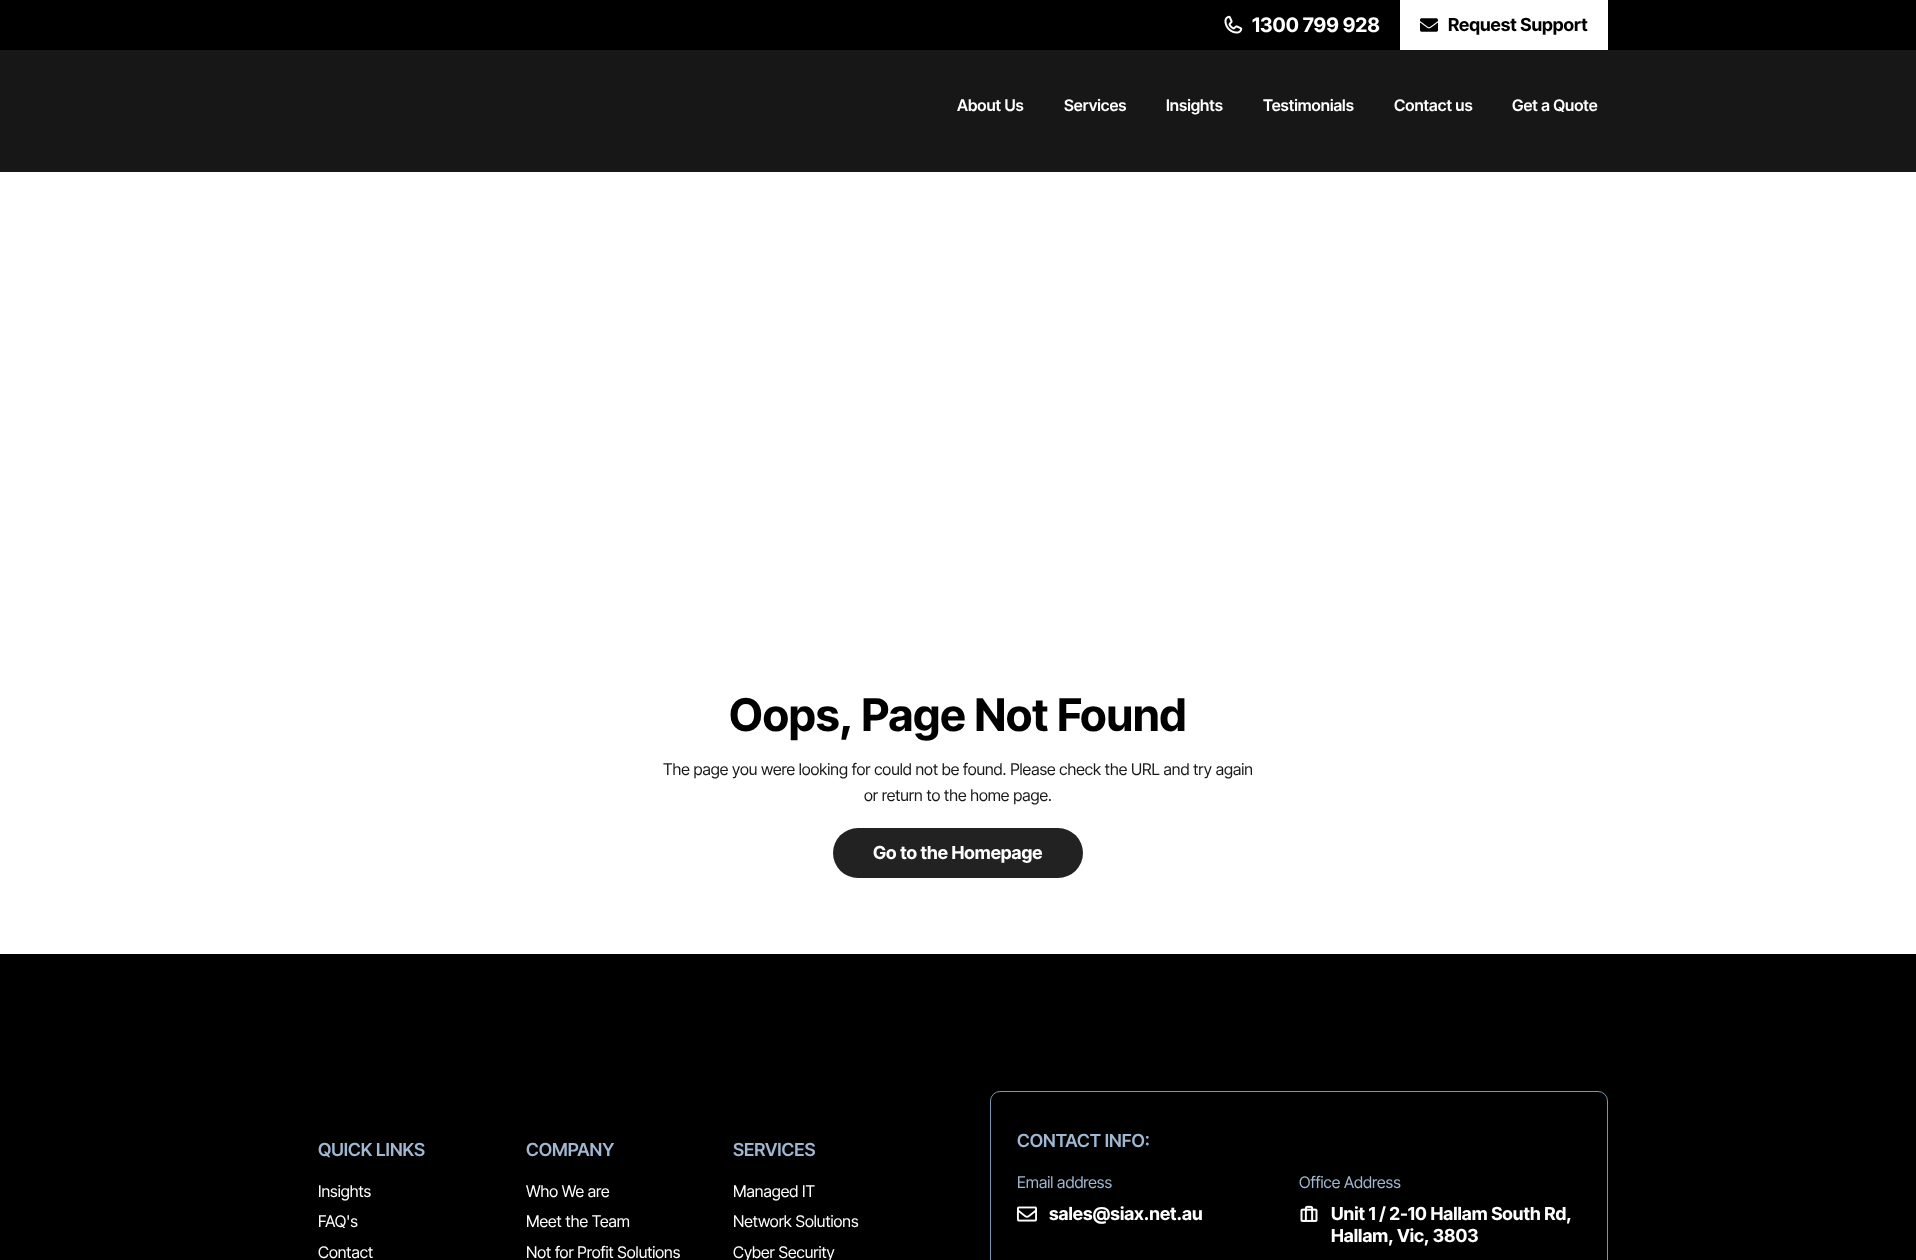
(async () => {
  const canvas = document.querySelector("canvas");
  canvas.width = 1916;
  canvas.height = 1260;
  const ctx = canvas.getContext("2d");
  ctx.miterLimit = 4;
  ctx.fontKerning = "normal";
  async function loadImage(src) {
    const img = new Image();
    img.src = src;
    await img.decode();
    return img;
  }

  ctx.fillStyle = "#ffffff";
  ctx.fillRect(0, 0, 1916, 1260);
  ctx.fillStyle = "#000000";
  ctx.fillRect(0, 0, 1916, 50);
  ctx.drawImage(await loadImage("img/1.png"), 1224, 15, 19, 19);
  ctx.fillStyle = "#ffffff";
  ctx.fillRect(1400, 0, 208, 50);
  ctx.drawImage(await loadImage("img/2.png"), 1420, 18, 18, 14);
  ctx.fillStyle = "#171717";
  ctx.fillRect(0, 50, 1916, 122);
  ctx.fillStyle = "#222222";
  ctx.beginPath();
  ctx.roundRect(833, 828, 250, 50, 25);
  ctx.fill();
  ctx.fillStyle = "#000000";
  ctx.fillRect(0, 954, 1916, 306);
  ctx.beginPath();
  ctx.roundRect(990.5, 1091.5, 617, 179, 9.5);
  ctx.strokeStyle = "#7b96b4";
  ctx.stroke();
  ctx.drawImage(await loadImage("img/3.png"), 1017, 1206, 20, 16);
  ctx.drawImage(await loadImage("img/4.png"), 1300, 1205, 18, 17);
  ctx.font = "bold 20px Inter Tight";
  ctx.fillStyle = "#ffffff";
  ctx.fillText("1300 799 928", 1252, 32);
  ctx.font = "bold 18px Inter Tight";
  ctx.fillStyle = "#000000";
  ctx.fillText("Request Support", 1448, 31);
  ctx.font = "600 16px Inter Tight";
  ctx.fillStyle = "#ffffff";
  for (const [text, x, y] of [
    ["About Us", 957, 111],
    ["Services", 1064, 111],
    ["Insights", 1166, 111],
    ["Testimonials", 1263, 111],
    ["Contact us", 1394, 111],
    ["Get a Quote", 1512, 111],
  ]) {
    ctx.fillText(text, x, y);
  }
  ctx.font = "bold 45px Inter Tight";
  ctx.fillStyle = "#000000";
  ctx.fillText("Oops, Page Not Found", 729, 731);
  ctx.font = "16px Inter Tight";
  ctx.fillStyle = "#191919";
  ctx.fillText("The page you were looking for could not be found. Please check the URL and try again", 663, 775);
  ctx.fillText("or return to the home page.", 864, 801);
  ctx.font = "bold 18px Inter Tight";
  ctx.fillStyle = "#ffffff";
  ctx.fillText("Go to the Homepage", 873, 859);
  ctx.font = "600 18px Inter Tight";
  ctx.fillStyle = "#9fb7d1";
  ctx.fillText("QUICK LINKS", 318, 1156);
  ctx.font = "16px Inter Tight";
  ctx.fillStyle = "#ffffff";
  for (const [text, x, y] of [
    ["Insights", 318, 1197],
    ["FAQ's", 318, 1227],
    ["Contact", 318, 1258],
  ]) {
    ctx.fillText(text, x, y);
  }
  ctx.font = "600 18px Inter Tight";
  ctx.fillStyle = "#9fb7d1";
  ctx.fillText("COMPANY", 526, 1156);
  ctx.font = "16px Inter Tight";
  ctx.fillStyle = "#ffffff";
  for (const [text, x, y] of [
    ["Who We are", 526, 1197],
    ["Meet the Team", 526, 1227],
    ["Not for Profit Solutions", 526, 1258],
  ]) {
    ctx.fillText(text, x, y);
  }
  ctx.font = "600 18px Inter Tight";
  ctx.fillStyle = "#9fb7d1";
  ctx.fillText("SERVICES", 733, 1156);
  ctx.font = "16px Inter Tight";
  ctx.fillStyle = "#ffffff";
  for (const [text, x, y] of [
    ["Managed IT", 733, 1197],
    ["Network Solutions", 733, 1227],
    ["Cyber Security", 733, 1258],
  ]) {
    ctx.fillText(text, x, y);
  }
  ctx.font = "600 18px Inter Tight";
  ctx.fillStyle = "#9fb7d1";
  ctx.fillText("CONTACT INFO:", 1017, 1147);
  ctx.font = "16px Inter Tight";
  ctx.fillText("Email address", 1017, 1188);
  ctx.font = "bold 18px Inter Tight";
  ctx.fillStyle = "#ffffff";
  ctx.fillText("sales@siax.net.au", 1049, 1220);
  ctx.font = "16px Inter Tight";
  ctx.fillStyle = "#9fb7d1";
  ctx.fillText("Office Address", 1299, 1188);
  ctx.font = "bold 18px Inter Tight";
  ctx.fillStyle = "#ffffff";
  ctx.fillText("Unit 1 / 2-10 Hallam South Rd,", 1331, 1220);
  ctx.fillText("Hallam, Vic, 3803", 1331, 1242);
})();
